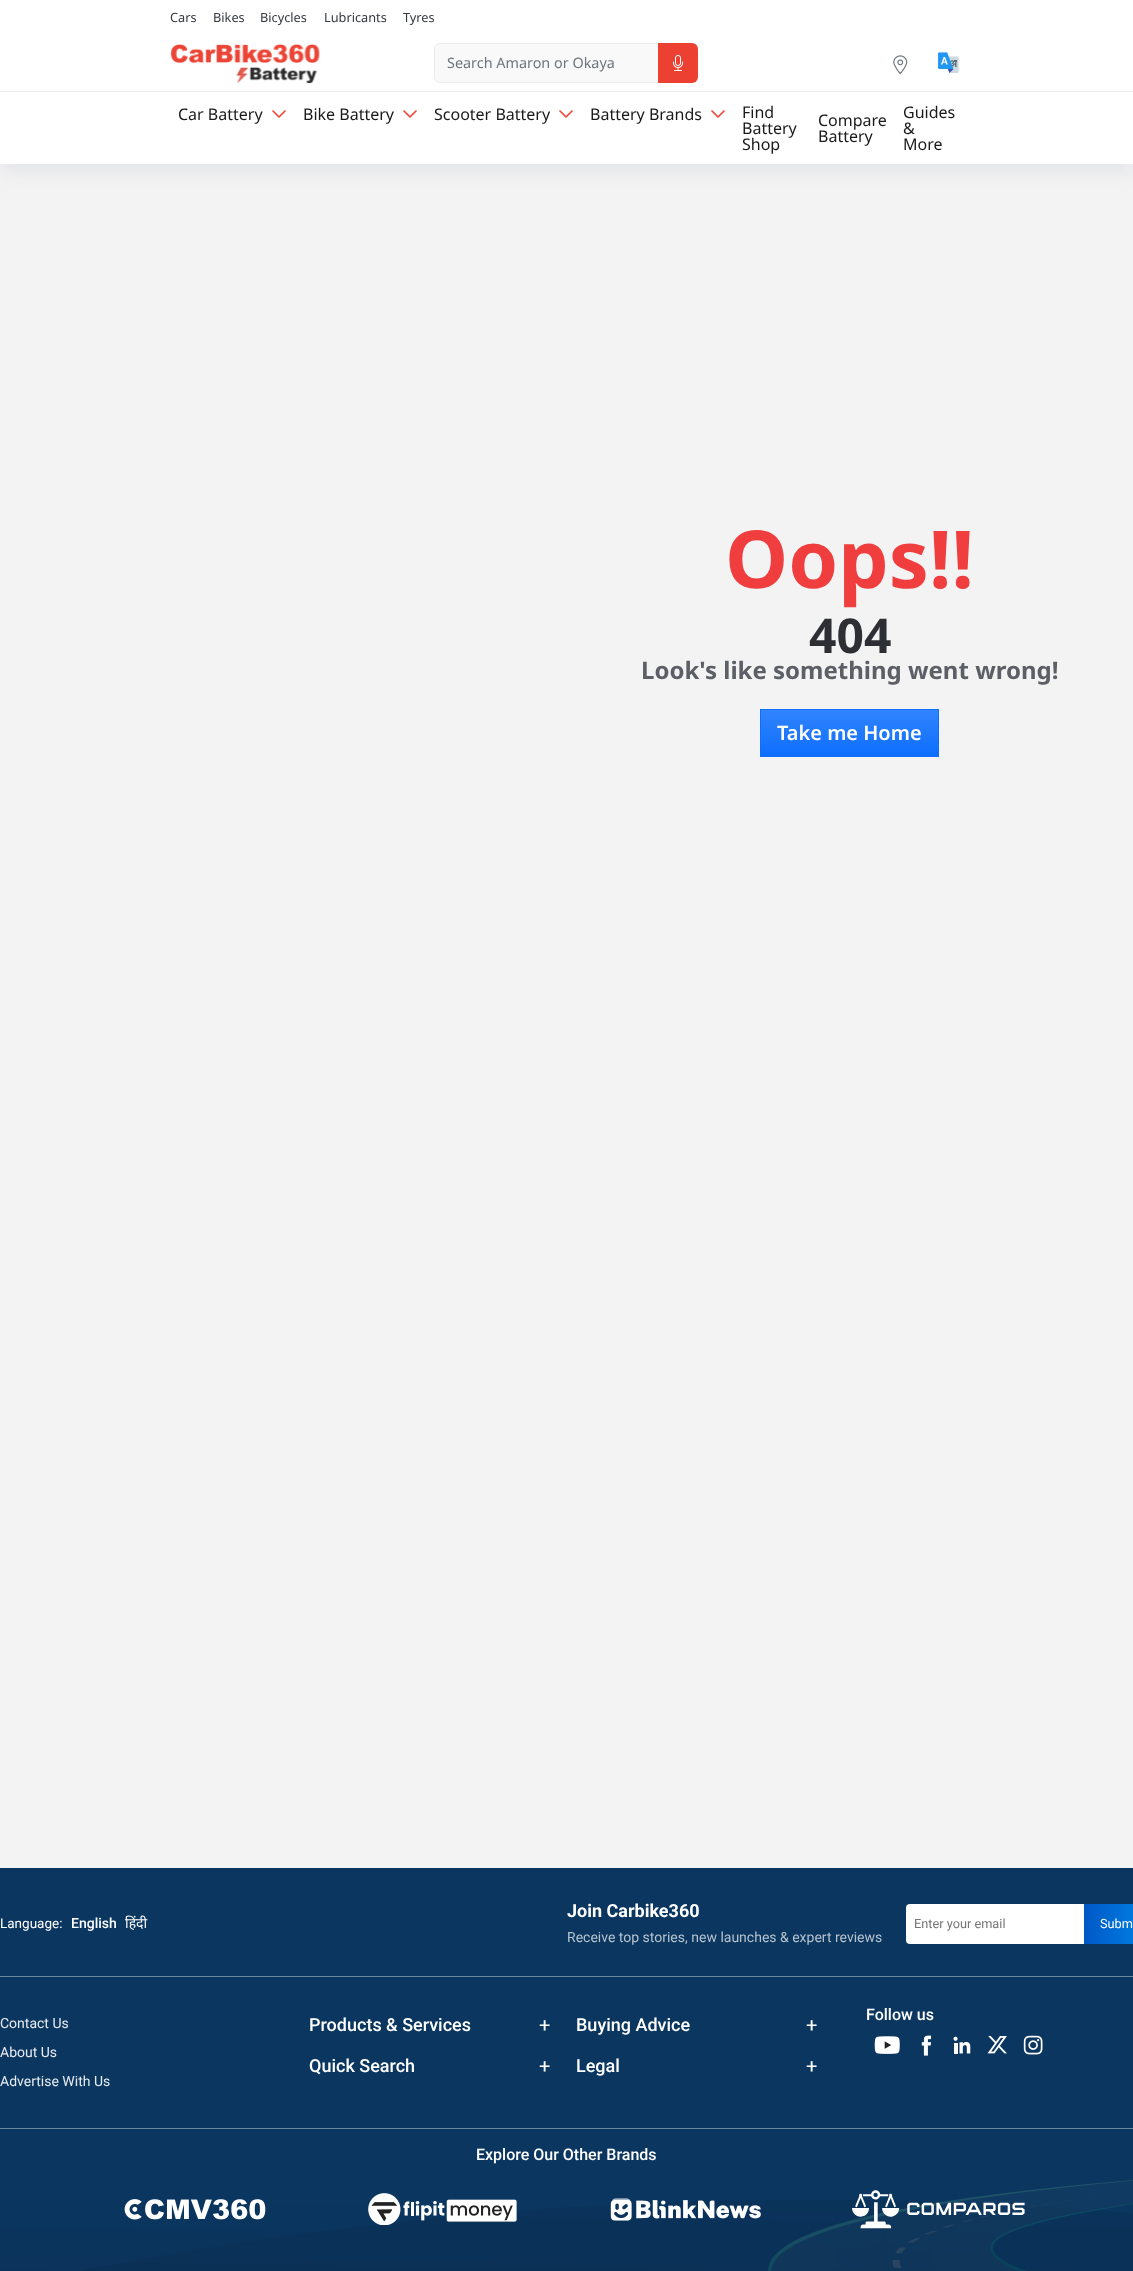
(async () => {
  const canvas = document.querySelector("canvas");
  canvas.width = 1133;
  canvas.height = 2271;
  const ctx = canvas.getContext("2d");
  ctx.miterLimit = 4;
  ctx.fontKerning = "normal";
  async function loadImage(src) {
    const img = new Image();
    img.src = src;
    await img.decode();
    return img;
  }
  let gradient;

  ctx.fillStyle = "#f3f3f3";
  ctx.fillRect(0, 0, 1133, 2271);
  ctx.fillStyle = "rgba(113, 116, 152, 0.11)";
  ctx.filter = "blur(9px)";
  ctx.beginPath();
  ctx.rect(0, 8, 1133, 164);
  ctx.fill();
  ctx.filter = "none";
  ctx.fillStyle = "#ffffff";
  ctx.fillRect(0, 0, 1133, 164);
  ctx.fillStyle = "#e9ecef";
  ctx.fillRect(0, 91, 1133, 1);
  ctx.drawImage(await loadImage("img/1.png"), 170, 44, 150, 40);
  ctx.fillStyle = "#f9f9f9";
  ctx.beginPath();
  ctx.roundRect(434.5, 43.5, 224, 39, [5.5, 0, 0, 5.5]);
  ctx.fill();
  ctx.strokeStyle = "#eaedf0";
  ctx.stroke();
  ctx.fillStyle = "#ec4132";
  ctx.beginPath();
  ctx.roundRect(658, 43, 40, 40, [0, 6, 6, 0]);
  ctx.fill();
  ctx.drawImage(await loadImage("img/2.png"), 673, 55, 10, 16);
  ctx.drawImage(await loadImage("img/3.png"), 893, 55, 15, 19);
  ctx.drawImage(await loadImage("img/4.png"), 938, 52, 21, 21);
  ctx.drawImage(await loadImage("img/5.png"), 272, 110, 14, 8);
  ctx.drawImage(await loadImage("img/5.png"), 403, 110, 14, 8);
  ctx.drawImage(await loadImage("img/5.png"), 559, 110, 14, 8);
  ctx.drawImage(await loadImage("img/5.png"), 711, 110, 14, 8);
  gradient = ctx.createLinearGradient(850, 710, 850, 756);
  gradient.addColorStop(0, "#3184fd");
  gradient.addColorStop(1, "#0d6efd");
  ctx.fillStyle = gradient;
  ctx.fillRect(761, 710, 177, 46);
  ctx.strokeStyle = "#0d6efd";
  ctx.strokeRect(760.5, 709.5, 178, 47);
  ctx.drawImage(await loadImage("img/6.png"), 0, 1868, 1133, 403);
  ctx.fillStyle = "#ffffff";
  ctx.beginPath();
  ctx.roundRect(906, 1904, 178, 40, [4, 0, 0, 4]);
  ctx.fill();
  gradient = ctx.createLinearGradient(1084, 1924, 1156, 1924);
  gradient.addColorStop(0, "#0058c6");
  gradient.addColorStop(1, "#0087e8");
  ctx.fillStyle = gradient;
  ctx.fillRect(1084, 1904, 49, 40);
  ctx.fillStyle = "#6c869f";
  ctx.fillRect(0, 1976, 1133, 1);
  ctx.drawImage(await loadImage("img/7.png"), 874, 2036, 26, 18);
  ctx.drawImage(await loadImage("img/8.png"), 921, 2035, 11, 21);
  ctx.drawImage(await loadImage("img/9.png"), 953, 2036, 18, 18);
  ctx.drawImage(await loadImage("img/10.png"), 987, 2036, 20, 18);
  ctx.drawImage(await loadImage("img/11.png"), 1023, 2035, 20, 20);
  ctx.fillRect(0, 2128, 1133, 1);
  ctx.drawImage(await loadImage("img/12.png"), 124, 2199, 142, 21);
  ctx.drawImage(await loadImage("img/13.png"), 368, 2193, 149, 32);
  ctx.drawImage(await loadImage("img/14.png"), 610, 2198, 151, 23);
  ctx.drawImage(await loadImage("img/15.png"), 852, 2190, 173, 39);
  ctx.font = "12.75px Noto Sans";
  ctx.fillStyle = "#343a40";
  for (const [text, x, y] of [
    ["Cars", 170, 22],
    ["Bikes", 213, 22],
    ["Bicycles", 260, 22],
    ["Lubricants", 324, 22],
    ["Tyres", 403, 22],
  ]) {
    ctx.fillText(text, x, y);
  }
  ctx.font = "14.4px Noto Sans";
  ctx.fillStyle = "#6c757d";
  ctx.fillText("Search Amaron or Okaya", 447, 68);
  ctx.font = "16px Noto Sans";
  ctx.fillStyle = "#1a1a1a";
  for (const [text, x, y] of [
    ["Car Battery", 178, 120],
    ["Bike Battery", 303, 120],
    ["Scooter Battery", 434, 120],
    ["Battery Brands", 590, 120],
    ["Find", 742, 118],
    ["Battery", 742, 134],
    ["Shop", 742, 150],
    ["Compare", 818, 126],
    ["Battery", 818, 142],
    ["Guides", 903, 118],
    ["&", 903, 134],
    ["More", 903, 150],
  ]) {
    ctx.fillText(text, x, y);
  }
  ctx.font = "bold 80px Noto Sans";
  ctx.fillStyle = "#f03d3d";
  ctx.fillText("Oops!!", 725, 588);
  ctx.font = "bold 48px Noto Sans";
  ctx.fillStyle = "#2d2f34";
  ctx.fillText("404", 809, 653);
  ctx.font = "bold 24px Noto Sans";
  ctx.fillStyle = "#5c5f66";
  ctx.fillText("Look's like something went wrong!", 641, 679);
  ctx.font = "600 20px Noto Sans";
  ctx.fillStyle = "#ffffff";
  ctx.fillText("Take me Home", 777, 740);
  ctx.font = "13.5px Roboto";
  ctx.fillText("Language:", 0, 1928);
  ctx.font = "500 14px Roboto";
  ctx.fillText("English", 71, 1928);
  ctx.font = "14px Noto Sans";
  ctx.fillText("हिंदी", 125, 1928);
  ctx.font = "bold 18px Roboto";
  ctx.fillText("Join Carbike360", 567, 1917);
  ctx.font = "14px Roboto";
  ctx.fillStyle = "#b6c3cf";
  ctx.fillText("Receive top stories, new launches & expert reviews", 567, 1942);
  ctx.font = "12.75px Roboto";
  ctx.fillStyle = "#757575";
  ctx.fillText("Enter your email", 914, 1928);
  ctx.fillStyle = "#ffffff";
  ctx.fillText("Subm", 1100, 1928);
  ctx.font = "500 16px Roboto";
  ctx.fillText("Follow us", 866, 2020);
  ctx.font = "14px Roboto";
  ctx.fillStyle = "#e7ebef";
  for (const [text, x, y] of [
    ["Contact Us", 0, 2028],
    ["About Us", 0, 2057],
    ["Advertise With Us", 0, 2086],
  ]) {
    ctx.fillText(text, x, y);
  }
  ctx.font = "500 18px Roboto";
  ctx.fillStyle = "#ffffff";
  ctx.fillText("Products & Services", 309, 2031);
  ctx.font = "20px Roboto";
  ctx.fillText("+", 539, 2032);
  ctx.font = "500 18px Roboto";
  ctx.fillText("Buying Advice", 576, 2031);
  ctx.font = "20px Roboto";
  ctx.fillText("+", 806, 2032);
  ctx.font = "500 18px Roboto";
  ctx.fillText("Quick Search", 309, 2072);
  ctx.font = "20px Roboto";
  ctx.fillText("+", 539, 2073);
  ctx.font = "500 18px Roboto";
  ctx.fillText("Legal", 576, 2072);
  ctx.font = "20px Roboto";
  ctx.fillText("+", 806, 2073);
  ctx.font = "500 16px Roboto";
  ctx.fillText("Explore Our Other Brands", 476, 2160);
})();
